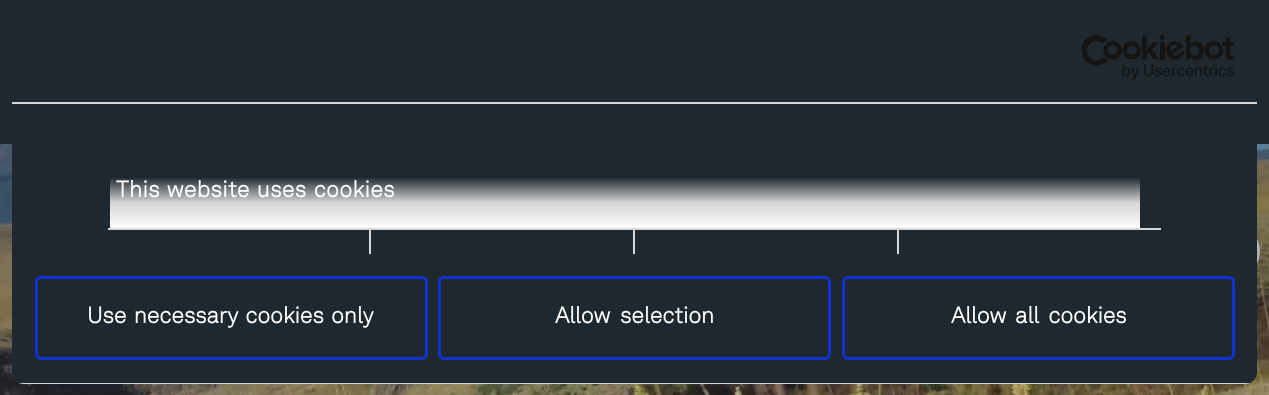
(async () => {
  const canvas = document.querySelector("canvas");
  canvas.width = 1269;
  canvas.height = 395;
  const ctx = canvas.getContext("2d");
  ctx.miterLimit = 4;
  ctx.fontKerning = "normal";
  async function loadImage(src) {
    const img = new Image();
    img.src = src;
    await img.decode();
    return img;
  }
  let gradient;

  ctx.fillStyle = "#ffffff";
  ctx.fillRect(0, 0, 1269, 395);
  ctx.fillStyle = "#1f282e";
  ctx.fillRect(0, 0, 1269, 144);
  ctx.drawImage(await loadImage("img/1.png"), 0, 144, 1269, 251);
  gradient = ctx.createLinearGradient(635, 0, 635, 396);
  gradient.addColorStop(0, "rgba(0, 0, 0, 0.4)");
  gradient.addColorStop(1, "rgba(0, 0, 0, 0)");
  ctx.fillStyle = gradient;
  ctx.fillRect(0, 144, 1269, 231);
  ctx.fillStyle = "rgba(0, 0, 0, 0.5)";
  ctx.filter = "blur(15px)";
  ctx.beginPath();
  ctx.roundRect(1140, 261, 105, 105, 21);
  ctx.fill();
  ctx.filter = "none";
  ctx.fillStyle = "#b0b3b3";
  ctx.beginPath();
  ctx.roundRect(1205, 224, 55, 54, 27);
  ctx.fill();
  ctx.fillStyle = "#1f282e";
  ctx.beginPath();
  ctx.roundRect(12, 12, 1245, 372, 12);
  ctx.fill();
  ctx.fillStyle = "#d6d6d6";
  ctx.fillRect(12, 102, 1245, 2);
  ctx.drawImage(await loadImage("img/2.png"), 1082, 35, 153, 45);
  for (const [x, y, w, h, color] of [
    [108, 228, 1053, 2, "#d6d6d6"],
    [369, 230, 2, 24, "#d6d6d6"],
    [633, 230, 2, 24, "#d6d6d6"],
    [897, 230, 2, 24, "#d6d6d6"],
  ]) {
    ctx.fillStyle = color;
    ctx.fillRect(x, y, w, h);
  }
  ctx.save();
  ctx.beginPath();
  ctx.roundRect(12, 12, 1245, 372, 12);
  ctx.clip();
  ctx.fillRect(12, 383, 1245, 1);
  ctx.restore();
  ctx.beginPath();
  ctx.roundRect(36.5, 277.5, 390, 81, 4.5);
  ctx.strokeStyle = "#1032cf";
  ctx.lineWidth = 3;
  ctx.stroke();
  ctx.beginPath();
  ctx.roundRect(439.5, 277.5, 390, 81, 4.5);
  ctx.stroke();
  ctx.beginPath();
  ctx.roundRect(843.5, 277.5, 390, 81, 4.5);
  ctx.stroke();
  ctx.letterSpacing = "0.4px";
  ctx.wordSpacing = "1.5px";
  ctx.font = "bold 22.5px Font";
  ctx.fillStyle = "#ffffff";
  ctx.fillText("This website uses cookies", 116, 197);
  gradient = ctx.createLinearGradient(625, 228, 625, 177);
  gradient.addColorStop(0, "#ffffff");
  gradient.addColorStop(0.5, "rgba(255, 255, 255, 0.8)");
  gradient.addColorStop(1, "rgba(255, 255, 255, 0)");
  ctx.fillStyle = gradient;
  ctx.fillRect(110, 178, 1030, 50);
  ctx.letterSpacing = "0px";
  ctx.wordSpacing = "2px";
  ctx.fillStyle = "#ffffff";
  ctx.fillText("Use necessary cookies only", 87, 323);
  ctx.wordSpacing = "5px";
  ctx.fillText("Allow selection", 555, 323);
  ctx.wordSpacing = "4px";
  ctx.fillText("Allow all cookies", 951, 323);
})();
